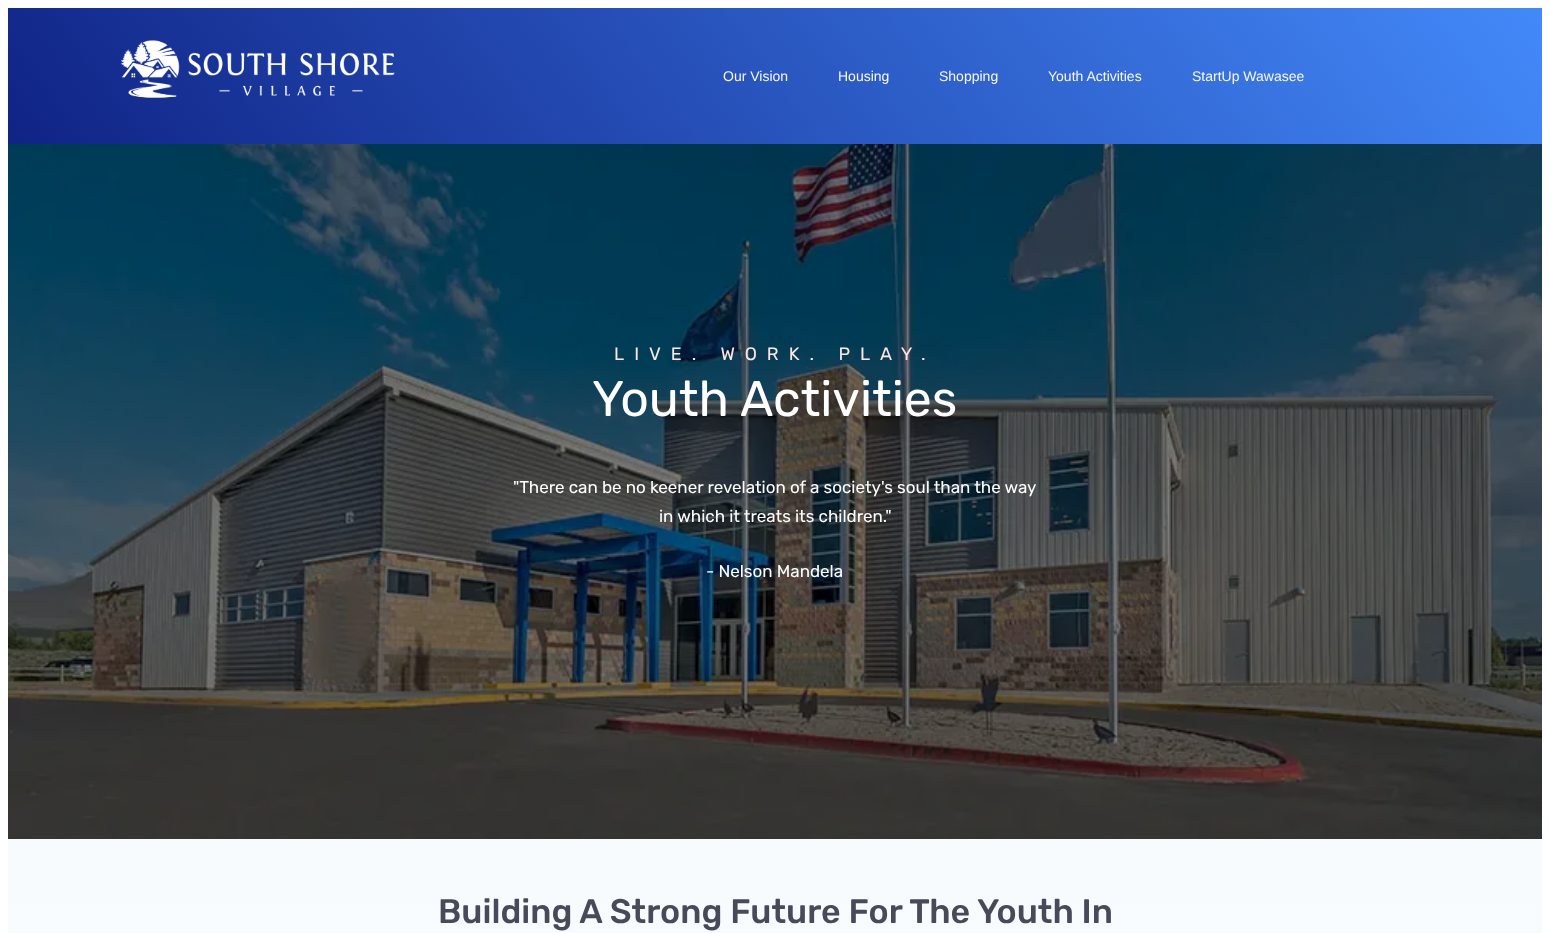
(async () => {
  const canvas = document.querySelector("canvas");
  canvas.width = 1550;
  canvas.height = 933;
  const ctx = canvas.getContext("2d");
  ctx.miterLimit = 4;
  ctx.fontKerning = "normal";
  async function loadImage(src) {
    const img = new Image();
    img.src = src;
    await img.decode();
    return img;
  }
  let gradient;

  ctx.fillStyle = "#ffffff";
  ctx.fillRect(0, 0, 1550, 933);
  gradient = ctx.createLinearGradient(241, 464, 1309, -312);
  gradient.addColorStop(0, "#102385");
  gradient.addColorStop(1, "#4389f9");
  ctx.fillStyle = gradient;
  ctx.fillRect(8, 8, 1534, 136);
  ctx.drawImage(await loadImage("img/1.png"), 121, 40, 274, 58);
  ctx.drawImage(await loadImage("img/2.png"), 8, 144, 1534, 695);
  gradient = ctx.createLinearGradient(775, 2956, 775, 839);
  gradient.addColorStop(0, "#ffffff");
  gradient.addColorStop(1, "#f8fbfd");
  ctx.fillStyle = gradient;
  ctx.fillRect(8, 839, 1534, 94);
  ctx.font = "14px Liberation Sans";
  ctx.fillStyle = "#f8f8f8";
  for (const [text, x, y] of [
    ["Our Vision", 723, 81],
    ["Housing", 838, 81],
    ["Shopping", 939, 81],
    ["Youth Activities", 1048, 81],
    ["StartUp Wawasee", 1192, 81],
  ]) {
    ctx.fillText(text, x, y);
  }
  ctx.letterSpacing = "10px";
  ctx.font = "18px Rubik";
  ctx.fillStyle = "#ffe6e6";
  ctx.fillText("LIVE. WORK. PLAY.", 614, 360);
  ctx.letterSpacing = "0px";
  ctx.font = "50px Rubik";
  ctx.fillStyle = "#ffffff";
  ctx.fillText("Youth Activities", 592, 416);
  ctx.font = "17px Rubik";
  for (const [text, x, y] of [
    ["\"There can be no keener revelation of a society's soul than the way", 513, 493],
    ["in which it treats its children.\"", 659, 522],
    ["- Nelson Mandela", 706, 577],
  ]) {
    ctx.fillText(text, x, y);
  }
  ctx.font = "500 34px Rubik";
  ctx.fillStyle = "#474a59";
  ctx.fillText("Building A Strong Future For The Youth In", 438, 923);
})();
